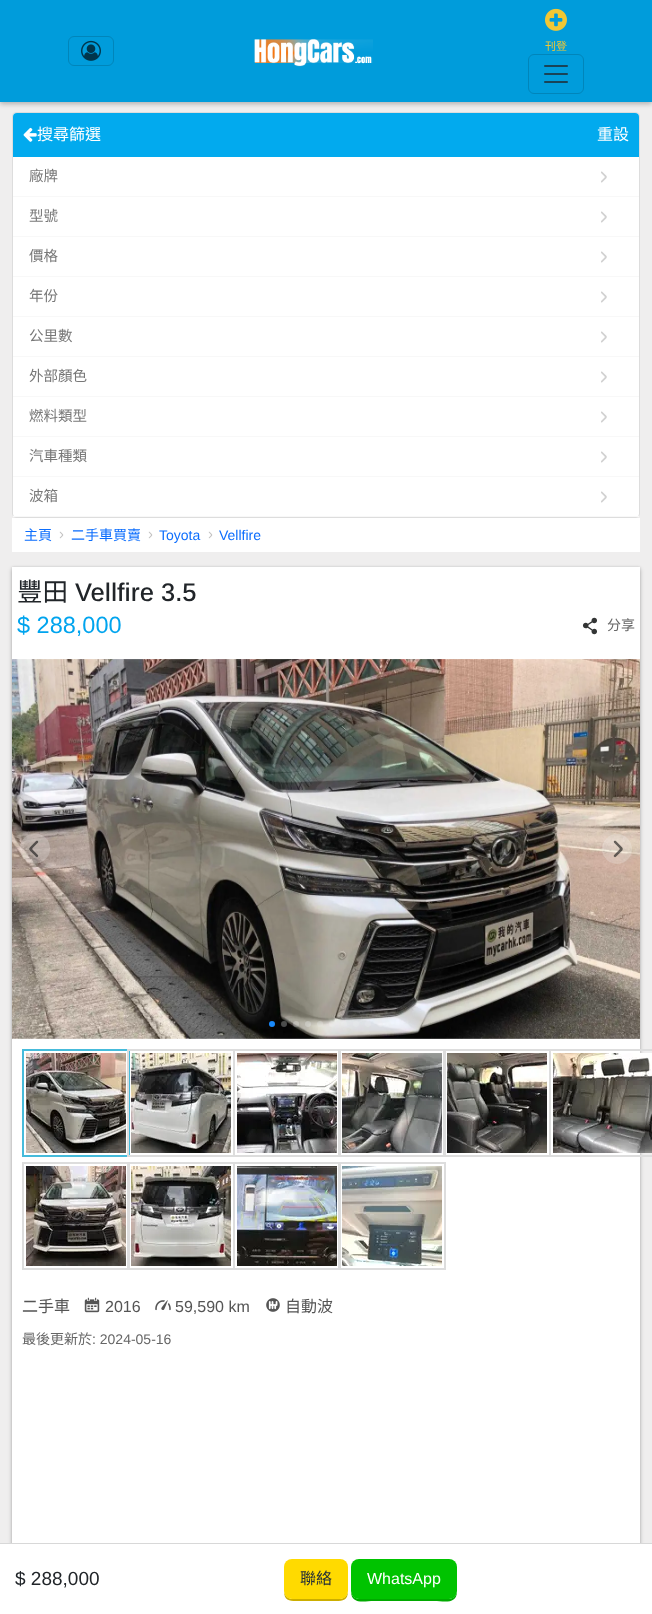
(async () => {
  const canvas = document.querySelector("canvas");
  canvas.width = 652;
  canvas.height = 1614;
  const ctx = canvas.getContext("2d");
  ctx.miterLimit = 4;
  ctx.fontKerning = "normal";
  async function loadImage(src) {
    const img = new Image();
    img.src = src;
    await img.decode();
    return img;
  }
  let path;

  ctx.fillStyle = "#efeeee";
  ctx.fillRect(0, 0, 652, 1614);
  ctx.fillStyle = "rgba(0, 0, 0, 0.26)";
  ctx.filter = "blur(2.5px)";
  ctx.beginPath();
  ctx.rect(0, 2, 652, 102);
  ctx.fill();
  ctx.filter = "none";
  ctx.fillStyle = "#009cdb";
  ctx.fillRect(0, 0, 652, 102);
  ctx.beginPath();
  ctx.roundRect(68.5, 36.5, 45, 29, 5.5);
  ctx.strokeStyle = "#0085ba";
  ctx.stroke();
  ctx.drawImage(await loadImage("img/1.png"), 81, 40, 20, 21);
  ctx.drawImage(await loadImage("img/2.png"), 254, 38, 119, 29);
  ctx.drawImage(await loadImage("img/3.png"), 545, 8, 22, 23);
  ctx.beginPath();
  ctx.roundRect(528.5, 54.5, 55, 39, 5.5);
  ctx.stroke();
  ctx.drawImage(await loadImage("img/4.png"), 544, 65, 24, 18);
  ctx.fillStyle = "#ffffff";
  ctx.beginPath();
  ctx.roundRect(12.5, 112.5, 627, 405, 3.5);
  ctx.fill();
  ctx.strokeStyle = "#dddddd";
  ctx.stroke();
  ctx.fillStyle = "#02aaee";
  ctx.beginPath();
  ctx.roundRect(13, 113, 626, 44, [4, 4, 0, 0]);
  ctx.fill();
  ctx.drawImage(await loadImage("img/5.png"), 23, 127, 14, 15);
  ctx.fillStyle = "#f8f8f8";
  ctx.fillRect(13, 196, 626, 1);
  ctx.drawImage(await loadImage("img/6.png"), 601, 171, 6, 12);
  ctx.fillRect(13, 236, 626, 1);
  ctx.drawImage(await loadImage("img/6.png"), 601, 211, 6, 12);
  ctx.fillRect(13, 276, 626, 1);
  ctx.drawImage(await loadImage("img/6.png"), 601, 251, 6, 12);
  ctx.fillRect(13, 316, 626, 1);
  ctx.drawImage(await loadImage("img/6.png"), 601, 291, 6, 12);
  ctx.fillRect(13, 356, 626, 1);
  ctx.drawImage(await loadImage("img/6.png"), 601, 331, 6, 12);
  ctx.fillRect(13, 396, 626, 1);
  ctx.drawImage(await loadImage("img/6.png"), 601, 371, 6, 12);
  ctx.fillRect(13, 436, 626, 1);
  ctx.drawImage(await loadImage("img/6.png"), 601, 411, 6, 12);
  ctx.fillRect(13, 476, 626, 1);
  ctx.drawImage(await loadImage("img/6.png"), 601, 451, 6, 12);
  ctx.fillRect(13, 516, 626, 1);
  ctx.drawImage(await loadImage("img/6.png"), 601, 491, 6, 12);
  ctx.fillStyle = "#ffffff";
  ctx.fillRect(12, 518, 628, 34);
  ctx.drawImage(await loadImage("img/7.png"), 59, 531, 5, 8);
  ctx.drawImage(await loadImage("img/7.png"), 148, 531, 5, 8);
  ctx.drawImage(await loadImage("img/7.png"), 208, 531, 5, 8);
  ctx.fillStyle = "rgba(0, 0, 0, 0.24)";
  ctx.filter = "blur(2px)";
  ctx.beginPath();
  ctx.rect(12, 569, 628, 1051);
  ctx.fill();
  ctx.filter = "none";
  ctx.fillStyle = "rgba(0, 0, 0, 0.12)";
  ctx.filter = "blur(1px)";
  ctx.beginPath();
  ctx.rect(12, 567, 628, 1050);
  ctx.fill();
  ctx.filter = "none";
  ctx.fillStyle = "#ffffff";
  ctx.fillRect(12, 567, 628, 976);
  ctx.drawImage(await loadImage("img/8.png"), 582, 617, 15, 18);
  ctx.drawImage(await loadImage("img/9.png"), 12, 659, 628, 380);
  ctx.fillStyle = "#1989fa";
  ctx.beginPath();
  ctx.arc(272, 1024, 3, 0, Math.PI * 2);
  ctx.fill();
  ctx.fillStyle = "rgba(235, 237, 240, 0.3)";
  ctx.beginPath();
  ctx.arc(284, 1024, 3, 0, Math.PI * 2);
  ctx.fill();
  ctx.beginPath();
  ctx.arc(296, 1024, 3, 0, Math.PI * 2);
  ctx.fill();
  ctx.beginPath();
  ctx.arc(308, 1024, 3, 0, Math.PI * 2);
  ctx.fill();
  ctx.beginPath();
  ctx.arc(320, 1024, 3, 0, Math.PI * 2);
  ctx.fill();
  ctx.beginPath();
  ctx.arc(332, 1024, 3, 0, Math.PI * 2);
  ctx.fill();
  ctx.beginPath();
  ctx.arc(344, 1024, 3, 0, Math.PI * 2);
  ctx.fill();
  ctx.beginPath();
  ctx.arc(356, 1024, 3, 0, Math.PI * 2);
  ctx.fill();
  ctx.beginPath();
  ctx.arc(368, 1024, 3, 0, Math.PI * 2);
  ctx.fill();
  ctx.beginPath();
  ctx.arc(380, 1024, 3, 0, Math.PI * 2);
  ctx.fill();
  ctx.fillStyle = "rgba(248, 248, 248, 0.24)";
  path = new Path2D("M35 833.5C26.5 833.5 20 840 20 848.5C20 857 26.5 863.5 35 863.5C43.5 863.5 50 857 50 848.5C50 840 43.5 833.5 35 833.5Z");
  ctx.fill(path);
  ctx.drawImage(await loadImage("img/10.png"), 29, 840, 10, 18);
  ctx.beginPath();
  ctx.arc(617, 849, 15, 0, Math.PI * 2);
  ctx.fill();
  ctx.drawImage(await loadImage("img/11.png"), 613, 840, 10, 18);
  ctx.strokeStyle = "#46bbdb";
  ctx.lineWidth = 2;
  ctx.strokeRect(23, 1050, 106, 106);
  ctx.drawImage(await loadImage("img/12.png"), 26, 1053, 100, 100);
  ctx.strokeStyle = "#dddddd";
  ctx.strokeRect(128, 1050, 106, 106);
  ctx.drawImage(await loadImage("img/13.png"), 131, 1053, 100, 100);
  ctx.strokeRect(234, 1050, 106, 106);
  ctx.drawImage(await loadImage("img/14.png"), 237, 1053, 100, 100);
  ctx.strokeRect(339, 1050, 106, 106);
  ctx.drawImage(await loadImage("img/15.png"), 342, 1053, 100, 100);
  ctx.strokeRect(444, 1050, 106, 106);
  ctx.drawImage(await loadImage("img/16.png"), 447, 1053, 100, 100);
  ctx.strokeRect(550, 1050, 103, 106);
  ctx.drawImage(await loadImage("img/17.png"), 553, 1053, 99, 100);
  ctx.strokeRect(23, 1163, 106, 106);
  ctx.drawImage(await loadImage("img/18.png"), 26, 1166, 100, 100);
  ctx.strokeRect(128, 1163, 106, 106);
  ctx.drawImage(await loadImage("img/19.png"), 131, 1166, 100, 100);
  ctx.strokeRect(234, 1163, 106, 106);
  ctx.drawImage(await loadImage("img/20.png"), 237, 1166, 100, 100);
  ctx.strokeRect(339, 1163, 106, 106);
  ctx.drawImage(await loadImage("img/21.png"), 342, 1166, 100, 100);
  ctx.drawImage(await loadImage("img/22.png"), 84, 1297, 16, 16);
  ctx.drawImage(await loadImage("img/23.png"), 155, 1300, 16, 11);
  ctx.drawImage(await loadImage("img/24.png"), 266, 1298, 14, 14);
  ctx.fillStyle = "#ffffff";
  ctx.fillRect(0, 1544, 652, 70);
  ctx.fillStyle = "#d8d8d8";
  ctx.fillRect(0, 1543, 652, 1);
  ctx.fillStyle = "#ccae00";
  path = new Path2D("M284 1591C284 1602 291 1601 300 1601H332C341 1601 348 1602 348 1591C348 1595 344 1599 340 1599H292C288 1599 284 1595 284 1591Z");
  ctx.fill(path);
  ctx.fillStyle = "#ffda00";
  ctx.beginPath();
  ctx.roundRect(284, 1559, 64, 40, 8);
  ctx.fill();
  ctx.fillStyle = "#00aa00";
  path = new Path2D("M351 1591C351 1605 364 1601 374 1601H434C444 1601 457 1605 457 1591C457 1595 453 1599 449 1599H359C355 1599 351 1595 351 1591Z");
  ctx.fill(path);
  ctx.fillStyle = "#00c300";
  ctx.beginPath();
  ctx.roundRect(351, 1559, 106, 40, 8);
  ctx.fill();
  ctx.font = "11px Noto Sans CJK HK";
  ctx.fillStyle = "#f1c734";
  ctx.fillText("刊登", 545, 50);
  ctx.font = "16px Noto Sans CJK HK";
  ctx.fillStyle = "#ffffff";
  ctx.fillText("搜尋篩選", 37, 140);
  ctx.fillText("重設", 597, 140);
  ctx.font = "14.5px Noto Sans CJK HK";
  ctx.fillStyle = "#787878";
  for (const [text, x, y] of [
    ["廠牌", 29, 181],
    ["型號", 29, 221],
    ["價格", 29, 261],
    ["年份", 29, 301],
    ["公里數", 29, 341],
    ["外部顏色", 29, 381],
    ["燃料類型", 29, 421],
    ["汽車種類", 29, 461],
    ["波箱", 29, 501],
  ]) {
    ctx.fillText(text, x, y);
  }
  ctx.font = "14px Noto Sans CJK HK";
  ctx.fillStyle = "#0d6efd";
  ctx.fillText("主頁", 24, 540);
  ctx.fillText("二手車買賣", 71, 540);
  ctx.font = "14px Arimo";
  ctx.fillText("Toyota", 159, 540);
  ctx.fillText("Vellfire", 219, 540);
  ctx.font = "25.5px Noto Sans CJK HK";
  ctx.fillStyle = "#212529";
  ctx.fillText("豐田", 17, 601);
  ctx.font = "500 25.5px Arimo";
  ctx.fillText("Vellfire 3.5", 75, 601);
  ctx.font = "23.5px Arimo";
  ctx.fillStyle = "#00a4ee";
  ctx.fillText("$ 288,000", 17, 633);
  ctx.font = "14px Noto Sans CJK HK";
  ctx.fillStyle = "#666666";
  ctx.fillText("分享", 607, 630);
  ctx.font = "16px Noto Sans CJK HK";
  ctx.fillStyle = "#555555";
  ctx.fillText("二手車", 22, 1312);
  ctx.font = "16px Arimo";
  ctx.fillText("2016", 105, 1312);
  ctx.fillText("59,590 km", 175, 1312);
  ctx.font = "16px Noto Sans CJK HK";
  ctx.fillText("自動波", 285, 1312);
  ctx.font = "14px Noto Sans CJK HK";
  ctx.fillStyle = "#666666";
  ctx.fillText("最後更新於", 22, 1344);
  ctx.font = "14px Arimo";
  ctx.fillText(": 2024-05-16", 92, 1344);
  ctx.font = "19px Arimo";
  ctx.fillStyle = "#212529";
  ctx.fillText("$ 288,000", 15, 1585);
  ctx.font = "16px Noto Sans CJK HK";
  ctx.fillStyle = "#242e39";
  ctx.fillText("聯絡", 300, 1584);
  ctx.font = "16px Arimo";
  ctx.fillStyle = "#ffffff";
  ctx.fillText("WhatsApp", 367, 1584);
})();
